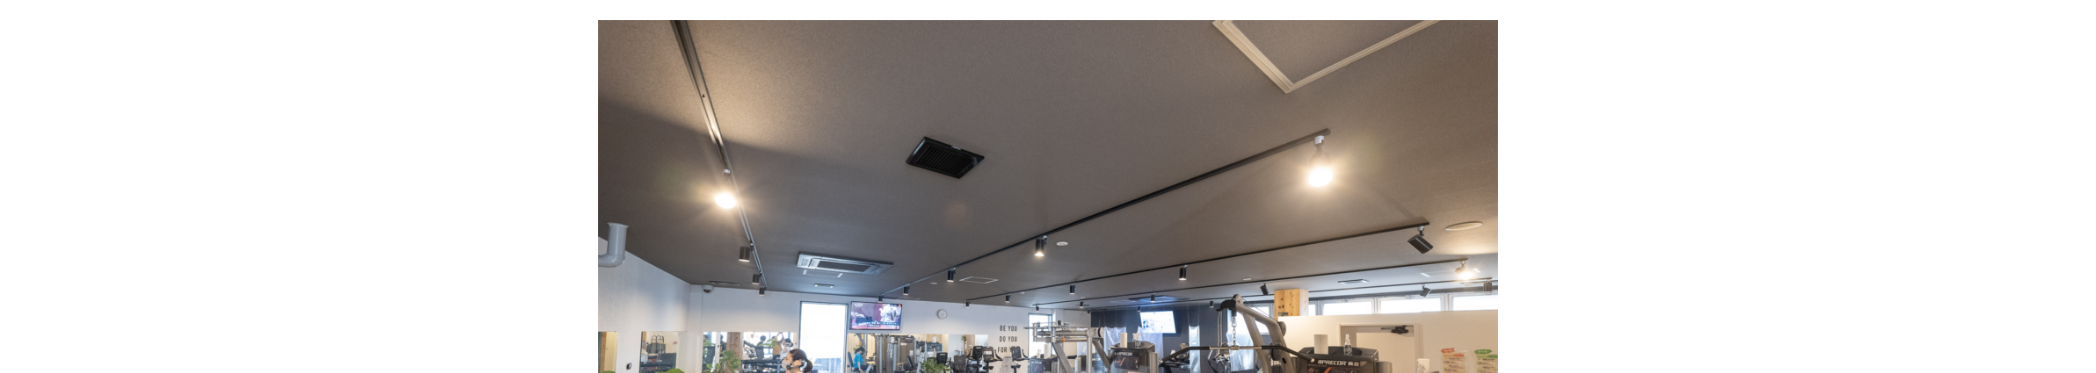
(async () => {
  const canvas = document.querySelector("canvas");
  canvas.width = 2096;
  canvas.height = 373;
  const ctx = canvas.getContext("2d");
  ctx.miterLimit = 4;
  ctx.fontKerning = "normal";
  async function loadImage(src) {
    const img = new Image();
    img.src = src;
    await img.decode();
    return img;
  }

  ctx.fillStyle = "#ffffff";
  ctx.fillRect(0, 0, 2096, 373);
  ctx.drawImage(await loadImage("img/1.png"), 598, 20, 900, 353);
})();
